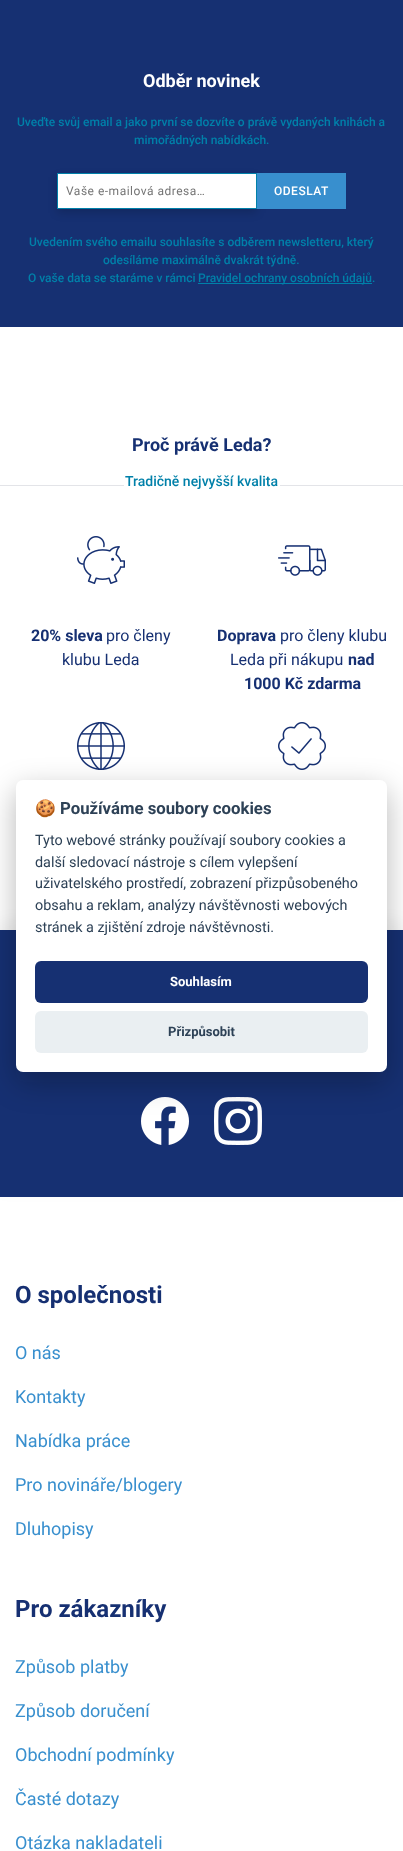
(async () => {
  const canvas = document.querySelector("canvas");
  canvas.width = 403;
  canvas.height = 1851;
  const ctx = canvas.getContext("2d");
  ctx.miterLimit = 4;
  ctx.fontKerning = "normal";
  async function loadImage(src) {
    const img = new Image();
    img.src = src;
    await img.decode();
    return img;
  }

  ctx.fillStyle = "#ffffff";
  ctx.fillRect(0, 0, 403, 1851);
  ctx.fillStyle = "#163072";
  ctx.fillRect(0, 0, 403, 327);
  ctx.fillStyle = "rgba(0, 0, 0, 0.15)";
  ctx.filter = "blur(4px)";
  ctx.beginPath();
  ctx.rect(57, 177, 200, 36);
  ctx.fill();
  ctx.filter = "none";
  ctx.fillStyle = "#ffffff";
  ctx.beginPath();
  ctx.rect(57.5, 173.5, 199, 35);
  ctx.fill();
  ctx.strokeStyle = "#0080a9";
  ctx.stroke();
  ctx.fillStyle = "#388fce";
  ctx.fillRect(257, 173, 89, 36);
  ctx.fillStyle = "#0080a9";
  ctx.fillRect(198, 283, 174, 1);
  ctx.drawImage(await loadImage("img/1.png"), 0, 485, 403, 1);
  ctx.drawImage(await loadImage("img/2.png"), 77, 536, 48, 48);
  ctx.drawImage(await loadImage("img/3.png"), 278, 545, 48, 31);
  ctx.drawImage(await loadImage("img/4.png"), 77, 722, 48, 48);
  ctx.drawImage(await loadImage("img/5.png"), 278, 722, 48, 48);
  ctx.fillStyle = "rgba(0, 0, 0, 0.05)";
  ctx.filter = "blur(8px)";
  ctx.beginPath();
  ctx.rect(0, 922, 403, 267);
  ctx.fill();
  ctx.filter = "none";
  ctx.fillStyle = "#163072";
  ctx.fillRect(0, 930, 403, 267);
  ctx.drawImage(await loadImage("img/6.png"), 141, 1097, 48, 48);
  ctx.drawImage(await loadImage("img/7.png"), 214, 1097, 48, 48);
  ctx.fillStyle = "rgba(2, 2, 3, 0.28)";
  ctx.filter = "blur(15px)";
  ctx.beginPath();
  ctx.roundRect(16, 790, 371, 292, 7);
  ctx.fill();
  ctx.filter = "none";
  ctx.fillStyle = "#ffffff";
  ctx.beginPath();
  ctx.roundRect(16, 780, 371, 292, 7);
  ctx.fill();
  ctx.fillStyle = "#163072";
  ctx.beginPath();
  ctx.roundRect(35, 961, 333, 42, 6);
  ctx.fill();
  ctx.fillStyle = "#eaeff2";
  ctx.beginPath();
  ctx.roundRect(35, 1011, 333, 42, 6);
  ctx.fill();
  ctx.font = "bold 18px Roboto";
  ctx.fillStyle = "#ffffff";
  ctx.fillText("Odběr novinek", 143, 87);
  ctx.font = "500 12px Roboto";
  ctx.fillStyle = "#0080a9";
  ctx.fillText("Uveďte svůj email a jako první se dozvíte o právě vydaných knihách a", 17, 126);
  ctx.fillText("mimořádných nabídkách.", 134, 144);
  ctx.letterSpacing = "0.5px";
  ctx.font = "12px Roboto";
  ctx.fillStyle = "#757575";
  ctx.fillText("Vaše e-mailová adresa…", 66, 195);
  ctx.font = "500 12px Roboto";
  ctx.fillStyle = "#ffffff";
  ctx.fillText("ODESLAT", 274, 195);
  ctx.letterSpacing = "0px";
  ctx.fillStyle = "#0080a9";
  for (const [text, x, y] of [
    ["Uvedením svého emailu souhlasíte s odběrem newsletteru, který", 29, 246],
    ["odesíláme maximálně dvakrát týdně.", 103, 264],
    ["O vaše data se staráme v rámci", 28, 282],
    ["Pravidel ochrany osobních údajů.", 198, 282],
  ]) {
    ctx.fillText(text, x, y);
  }
  ctx.font = "bold 18px Roboto";
  ctx.fillStyle = "#163072";
  ctx.fillText("Proč právě Leda?", 132, 451);
  ctx.font = "500 14px Roboto";
  ctx.fillStyle = "#0080a9";
  ctx.fillText("Tradičně nejvyšší kvalita", 125, 486);
  ctx.font = "bold 16px Roboto";
  ctx.fillStyle = "#163072";
  ctx.fillText("20% sleva", 31, 641);
  ctx.font = "16px Roboto";
  ctx.fillText("pro členy", 106, 641);
  ctx.fillText("klubu Leda", 62, 665);
  ctx.font = "bold 16px Roboto";
  ctx.fillText("Doprava", 217, 641);
  ctx.font = "16px Roboto";
  ctx.fillText("pro členy klubu", 280, 641);
  ctx.fillText("Leda při nákupu", 230, 665);
  ctx.font = "bold 16px Roboto";
  ctx.fillText("nad", 348, 665);
  ctx.fillText("1000 Kč zdarma", 244, 689);
  ctx.font = "bold 24px Roboto";
  ctx.fillText("O společnosti", 15, 1303);
  ctx.font = "18px Roboto";
  ctx.fillStyle = "#388fce";
  for (const [text, x, y] of [
    ["O nás", 15, 1359],
    ["Kontakty", 15, 1403],
    ["Nabídka práce", 15, 1447],
    ["Pro novináře/blogery", 15, 1491],
    ["Dluhopisy", 15, 1535],
  ]) {
    ctx.fillText(text, x, y);
  }
  ctx.font = "bold 24px Roboto";
  ctx.fillStyle = "#163072";
  ctx.fillText("Pro zákazníky", 15, 1617);
  ctx.font = "18px Roboto";
  ctx.fillStyle = "#388fce";
  for (const [text, x, y] of [
    ["Způsob platby", 15, 1673],
    ["Způsob doručení", 15, 1717],
    ["Obchodní podmínky", 15, 1761],
    ["Časté dotazy", 15, 1805],
    ["Otázka nakladateli", 15, 1849],
  ]) {
    ctx.fillText(text, x, y);
  }
  ctx.font = "bold 16.75px Noto Color Emoji";
  ctx.fillStyle = "#2d4156";
  ctx.fillText("🍪", 35, 814);
  ctx.font = "bold 16.75px Roboto";
  ctx.fillText("Používáme soubory cookies", 60, 814);
  ctx.font = "14.4px Roboto";
  for (const [text, x, y] of [
    ["Tyto webové stránky používají soubory cookies a", 35, 845],
    ["další sledovací nástroje s cílem vylepšení", 35, 867],
    ["uživatelského prostředí, zobrazení přizpůsobeného", 35, 888],
    ["obsahu a reklam, analýzy návštěvnosti webových", 35, 910],
    ["stránek a zjištění zdroje návštěvnosti.", 35, 932],
  ]) {
    ctx.fillText(text, x, y);
  }
  ctx.font = "bold 13px Roboto";
  ctx.fillStyle = "#ffffff";
  ctx.fillText("Souhlasím", 170, 986);
  ctx.fillStyle = "#2d4156";
  ctx.fillText("Přizpůsobit", 168, 1036);
})();
